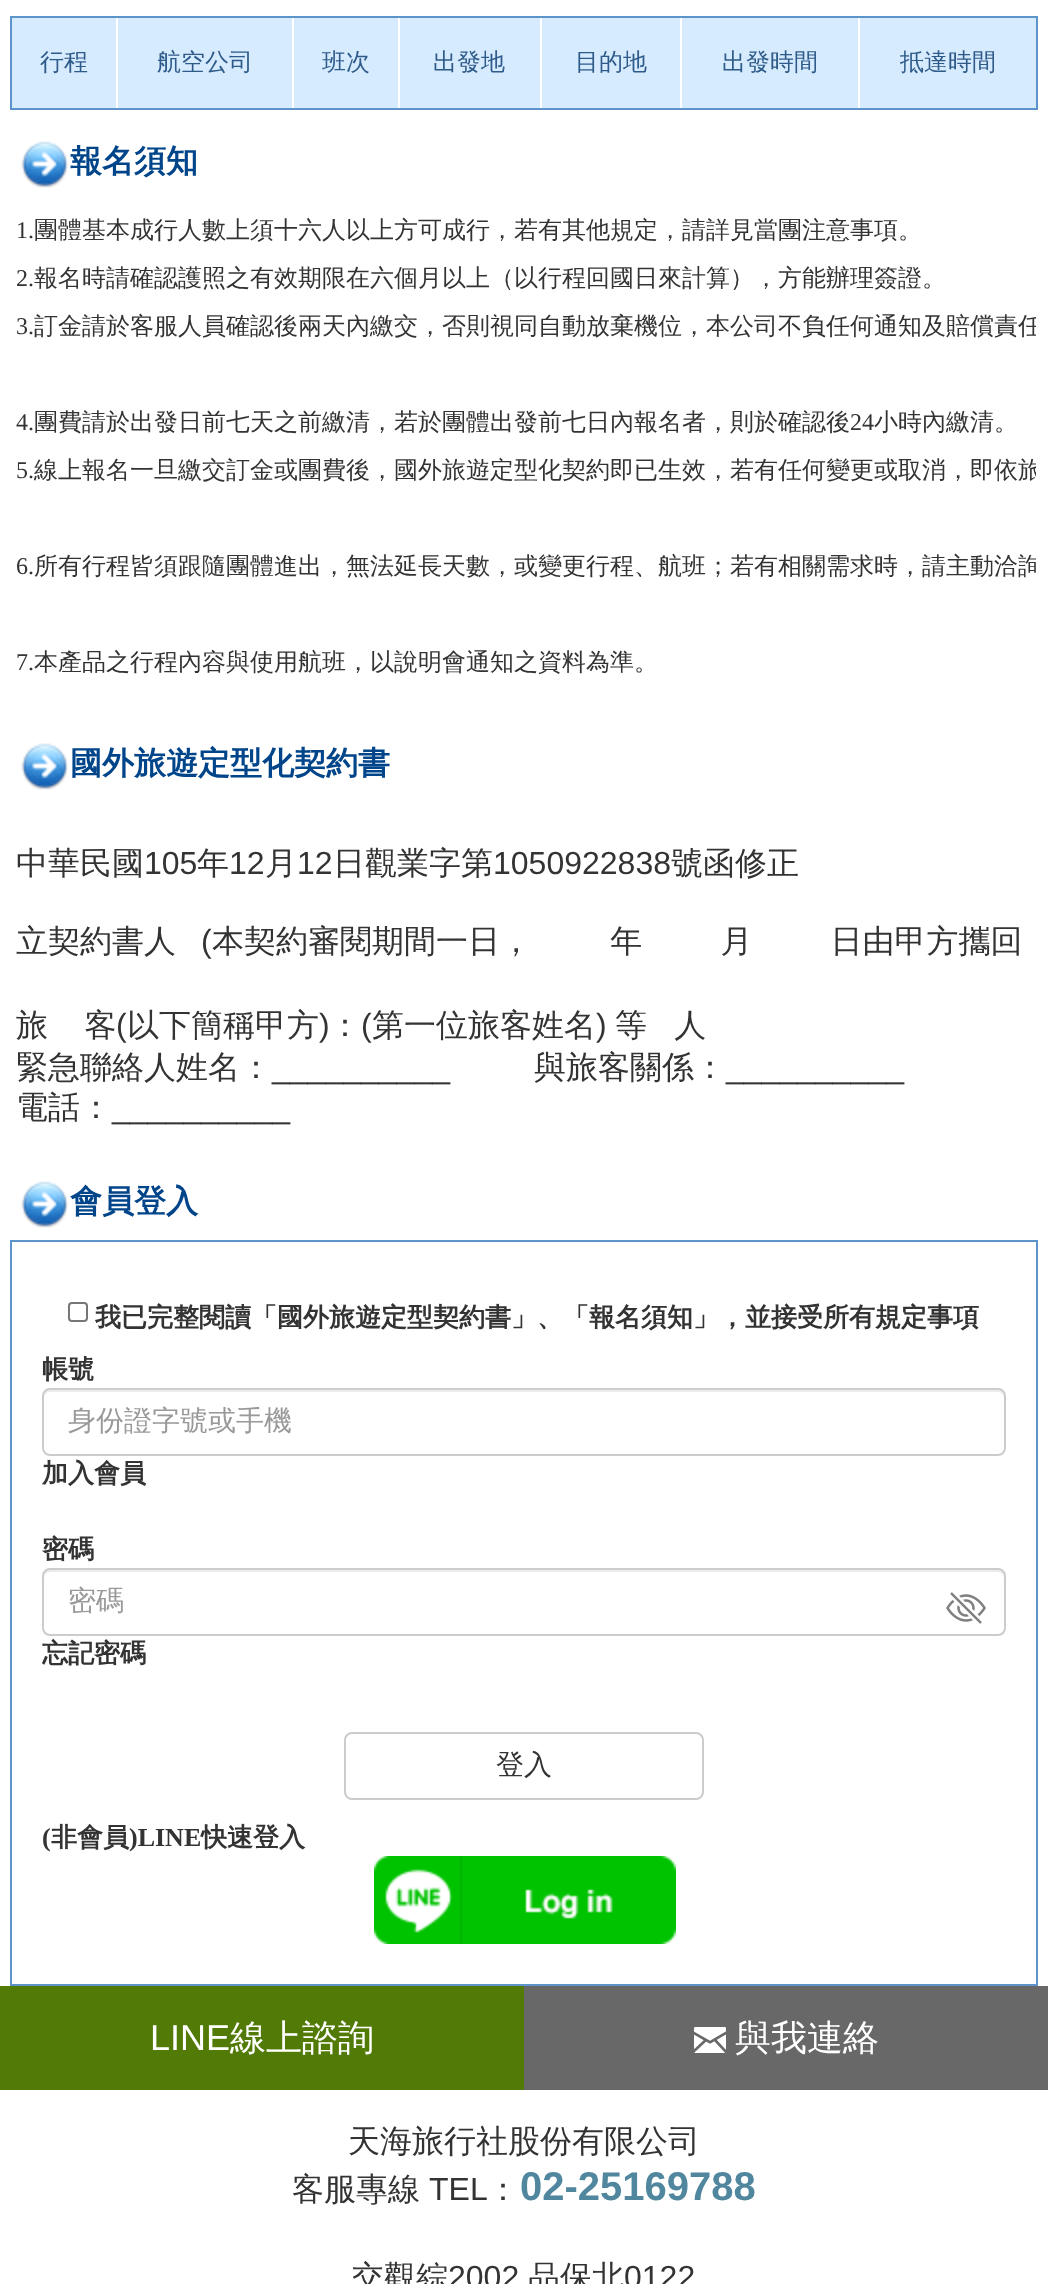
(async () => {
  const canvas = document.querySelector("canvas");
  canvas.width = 1048;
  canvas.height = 2284;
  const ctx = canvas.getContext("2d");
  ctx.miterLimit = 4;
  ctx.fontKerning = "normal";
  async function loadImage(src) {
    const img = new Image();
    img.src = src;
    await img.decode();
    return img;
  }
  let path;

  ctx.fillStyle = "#ffffff";
  ctx.fillRect(0, 0, 1048, 2284);
  for (const [x, y, w, h, color] of [
    [10, 16, 1028, 94, "#5c93c9"],
    [116, 18, 744, 90, "#ffffff"],
    [12, 18, 104, 90, "#d7ebff"],
    [118, 18, 174, 90, "#d7ebff"],
    [294, 18, 104, 90, "#d7ebff"],
    [400, 18, 140, 90, "#d7ebff"],
    [542, 18, 138, 90, "#d7ebff"],
    [682, 18, 176, 90, "#d7ebff"],
    [860, 18, 176, 90, "#d7ebff"],
  ]) {
    ctx.fillStyle = color;
    ctx.fillRect(x, y, w, h);
  }
  ctx.drawImage(await loadImage("img/1.png"), 21, 141, 47, 47);
  ctx.drawImage(await loadImage("img/1.png"), 21, 743, 47, 47);
  ctx.drawImage(await loadImage("img/1.png"), 21, 1181, 47, 47);
  ctx.strokeStyle = "#5c93c9";
  ctx.lineWidth = 2;
  ctx.strokeRect(11, 1241, 1026, 744);
  ctx.beginPath();
  ctx.roundRect(69, 1303, 18, 18, 3);
  ctx.strokeStyle = "#767676";
  ctx.stroke();
  ctx.fillStyle = "#ececec";
  path = new Path2D("M50 1392H998C1001 1392 1004 1395 1004 1398V1396C1004 1393 1001 1390 998 1390H50C47 1390 44 1393 44 1396V1398C44 1395 47 1392 50 1392Z");
  ctx.fill(path);
  ctx.beginPath();
  ctx.roundRect(43, 1389, 962, 66, 7);
  ctx.strokeStyle = "#cccccc";
  ctx.stroke();
  path = new Path2D("M50 1572H998C1001 1572 1004 1575 1004 1578V1576C1004 1573 1001 1570 998 1570H50C47 1570 44 1573 44 1576V1578C44 1575 47 1572 50 1572Z");
  ctx.fill(path);
  ctx.beginPath();
  ctx.roundRect(43, 1569, 962, 66, 7);
  ctx.stroke();
  ctx.drawImage(await loadImage("img/2.png"), 946, 1592, 40, 32);
  ctx.beginPath();
  ctx.roundRect(345, 1733, 358, 66, 7);
  ctx.stroke();
  ctx.drawImage(await loadImage("img/3.png"), 374, 1856, 302, 88);
  ctx.fillStyle = "#527a07";
  ctx.fillRect(0, 1986, 524, 104);
  ctx.fillStyle = "#686868";
  ctx.fillRect(524, 1986, 524, 104);
  ctx.drawImage(await loadImage("img/4.png"), 694, 2027, 32, 26);
  ctx.font = "500 24px WenQuanYi Zen Hei";
  ctx.fillStyle = "#2e5b89";
  for (const [text, x, y] of [
    ["行程", 40, 70],
    ["航空公司", 157, 70],
    ["班次", 322, 70],
    ["出發地", 433, 70],
    ["目的地", 575, 70],
    ["出發時間", 722, 70],
    ["抵達時間", 900, 70],
  ]) {
    ctx.fillText(text, x, y);
  }
  ctx.font = "bold 32px WenQuanYi Zen Hei";
  ctx.fillStyle = "#00458a";
  ctx.fillText("報名須知", 70, 172);
  ctx.font = "24px Liberation Serif";
  ctx.fillStyle = "#333333";
  ctx.fillText("1.", 16, 238);
  ctx.font = "500 24px WenQuanYi Zen Hei";
  ctx.fillText("團體基本成行人數上須十六人以上方可成行，若有其他規定，請詳見當團注意事項。", 34, 238);
  ctx.font = "24px Liberation Serif";
  ctx.fillText("2.", 16, 286);
  ctx.font = "500 24px WenQuanYi Zen Hei";
  ctx.fillText("報名時請確認護照之有效期限在六個月以上（以行程回國日來計算），方能辦理簽證。", 34, 286);
  ctx.font = "24px Liberation Serif";
  ctx.fillText("3.", 16, 334);
  ctx.save();
  ctx.beginPath();
  ctx.rect(12, 202, 1024, 488);
  ctx.clip();
  ctx.font = "500 24px WenQuanYi Zen Hei";
  ctx.fillText("訂金請於客服人員確認後兩天內繳交，否則視同自動放棄機位，本公司不負任何通知及賠償責任", 34, 334);
  ctx.restore();
  ctx.fillText("4.", 16, 430);
  ctx.font = "500 24px WenQuanYi Zen Hei";
  ctx.fillText("團費請於出發日前七天之前繳清，若於團體出發前七日內報名者，則於確認後", 34, 430);
  ctx.font = "24px Liberation Serif";
  ctx.fillText("24", 850, 430);
  ctx.font = "500 24px WenQuanYi Zen Hei";
  ctx.fillText("小時內繳清。", 874, 430);
  ctx.font = "24px Liberation Serif";
  ctx.fillText("5.", 16, 478);
  ctx.save();
  ctx.beginPath();
  ctx.rect(12, 202, 1024, 488);
  ctx.clip();
  ctx.font = "500 24px WenQuanYi Zen Hei";
  ctx.fillText("線上報名一旦繳交訂金或團費後，國外旅遊定型化契約即已生效，若有任何變更或取消，即依旅", 34, 478);
  ctx.restore();
  ctx.fillText("6.", 16, 574);
  ctx.save();
  ctx.beginPath();
  ctx.rect(12, 202, 1024, 488);
  ctx.clip();
  ctx.font = "500 24px WenQuanYi Zen Hei";
  ctx.fillText("所有行程皆須跟隨團體進出，無法延長天數，或變更行程、航班；若有相關需求時，請主動洽詢", 34, 574);
  ctx.restore();
  ctx.fillText("7.", 16, 670);
  ctx.font = "500 24px WenQuanYi Zen Hei";
  ctx.fillText("本產品之行程內容與使用航班，以說明會通知之資料為準。", 34, 670);
  ctx.font = "bold 32px WenQuanYi Zen Hei";
  ctx.fillStyle = "#00458a";
  ctx.fillText("國外旅遊定型化契約書", 70, 774);
  ctx.font = "500 32px WenQuanYi Zen Hei";
  ctx.fillStyle = "#333333";
  ctx.fillText("中華民國", 16, 874);
  ctx.font = "32px Liberation Sans";
  ctx.fillText("105", 144, 874);
  ctx.font = "500 32px WenQuanYi Zen Hei";
  ctx.fillText("年", 197, 874);
  ctx.font = "32px Liberation Sans";
  ctx.fillText("12", 229, 874);
  ctx.font = "500 32px WenQuanYi Zen Hei";
  ctx.fillText("月", 265, 874);
  ctx.font = "32px Liberation Sans";
  ctx.fillText("12", 297, 874);
  ctx.font = "500 32px WenQuanYi Zen Hei";
  ctx.fillText("日觀業字第", 333, 874);
  ctx.font = "32px Liberation Sans";
  ctx.fillText("1050922838", 493, 874);
  ctx.font = "500 32px WenQuanYi Zen Hei";
  ctx.fillText("號函修正", 671, 874);
  ctx.fillText("立契約書人", 16, 952);
  ctx.font = "32px Liberation Sans";
  ctx.fillText("(", 201, 952);
  ctx.wordSpacing = "-2.5px";
  ctx.font = "500 32px WenQuanYi Zen Hei";
  ctx.fillText("本契約審閱期間一日，　 　 年　 　 月　 　 日由甲方攜回", 212, 952);
  ctx.wordSpacing = "-0.5px";
  ctx.fillText("旅    客", 16, 1036);
  ctx.wordSpacing = "0px";
  ctx.font = "32px Liberation Sans";
  ctx.fillText("(", 116, 1036);
  ctx.font = "500 32px WenQuanYi Zen Hei";
  ctx.fillText("以下簡稱甲方", 127, 1036);
  ctx.font = "32px Liberation Sans";
  ctx.fillText(")", 319, 1036);
  ctx.font = "500 32px WenQuanYi Zen Hei";
  ctx.fillText("：", 329, 1036);
  ctx.font = "32px Liberation Sans";
  ctx.fillText("(", 361, 1036);
  ctx.font = "500 32px WenQuanYi Zen Hei";
  ctx.fillText("第一位旅客姓名", 372, 1036);
  ctx.font = "32px Liberation Sans";
  ctx.fillText(")", 596, 1036);
  ctx.wordSpacing = "-0.5px";
  ctx.font = "500 32px WenQuanYi Zen Hei";
  ctx.fillText("等   人", 615, 1036);
  ctx.wordSpacing = "0px";
  ctx.fillText("緊急聯絡人姓名：", 16, 1078);
  ctx.fillText("與旅客關係：", 534, 1078);
  ctx.font = "32px Liberation Sans";
  ctx.fillText("__________", 272, 1078);
  ctx.fillText("__________", 726, 1078);
  ctx.font = "500 32px WenQuanYi Zen Hei";
  ctx.fillText("電話：", 16, 1118);
  ctx.font = "32px Liberation Sans";
  ctx.fillText("__________", 112, 1118);
  ctx.font = "bold 32px WenQuanYi Zen Hei";
  ctx.fillStyle = "#00458a";
  ctx.fillText("會員登入", 70, 1212);
  ctx.font = "bold 26px WenQuanYi Zen Hei";
  ctx.fillStyle = "#333333";
  ctx.fillText("我已完整閱讀「國外旅遊定型契約書」、「報名須知」，並接受所有規定事項", 95, 1326);
  ctx.fillText("帳號", 42, 1378);
  ctx.font = "500 28px WenQuanYi Zen Hei";
  ctx.fillStyle = "#999999";
  ctx.fillText("身份證字號或手機", 68, 1430);
  ctx.font = "bold 26px WenQuanYi Zen Hei";
  ctx.fillStyle = "#333333";
  ctx.fillText("加入會員", 42, 1482);
  ctx.fillText("密碼", 42, 1558);
  ctx.font = "500 28px WenQuanYi Zen Hei";
  ctx.fillStyle = "#999999";
  ctx.fillText("密碼", 68, 1610);
  ctx.font = "bold 26px WenQuanYi Zen Hei";
  ctx.fillStyle = "#333333";
  ctx.fillText("忘記密碼", 42, 1662);
  ctx.font = "500 28px WenQuanYi Zen Hei";
  ctx.fillText("登入", 496, 1774);
  ctx.font = "bold 26px Liberation Serif";
  ctx.fillText("(", 42, 1846);
  ctx.font = "bold 26px WenQuanYi Zen Hei";
  ctx.fillText("非會員", 51, 1846);
  ctx.font = "bold 26px Liberation Serif";
  ctx.fillText(")LINE", 129, 1846);
  ctx.font = "bold 26px WenQuanYi Zen Hei";
  ctx.fillText("快速登入", 201, 1846);
  ctx.font = "36px Liberation Sans";
  ctx.fillStyle = "#ffffff";
  ctx.fillText("LINE", 150, 2050);
  ctx.font = "500 36px WenQuanYi Zen Hei";
  ctx.fillText("線上諮詢", 230, 2050);
  ctx.fillText("與我連絡", 735, 2050);
  ctx.font = "500 32px WenQuanYi Zen Hei";
  ctx.fillStyle = "#333333";
  ctx.fillText("天海旅行社股份有限公司", 348, 2152);
  ctx.fillText("客服專線", 292, 2200);
  ctx.font = "32px Liberation Sans";
  ctx.fillText("TEL", 429, 2200);
  ctx.font = "500 32px WenQuanYi Zen Hei";
  ctx.fillText("：", 487, 2200);
  ctx.font = "bold 40px Liberation Sans";
  ctx.fillStyle = "#50869e";
  ctx.fillText("02-25169788", 520, 2200);
  ctx.font = "500 32px WenQuanYi Zen Hei";
  ctx.fillStyle = "#333333";
  ctx.fillText("交觀綜", 352, 2288);
  ctx.font = "32px Liberation Sans";
  ctx.fillText("2002", 448, 2288);
  ctx.font = "500 32px WenQuanYi Zen Hei";
  ctx.fillText("品保北", 528, 2288);
  ctx.font = "32px Liberation Sans";
  ctx.fillText("0122", 624, 2288);
})();
